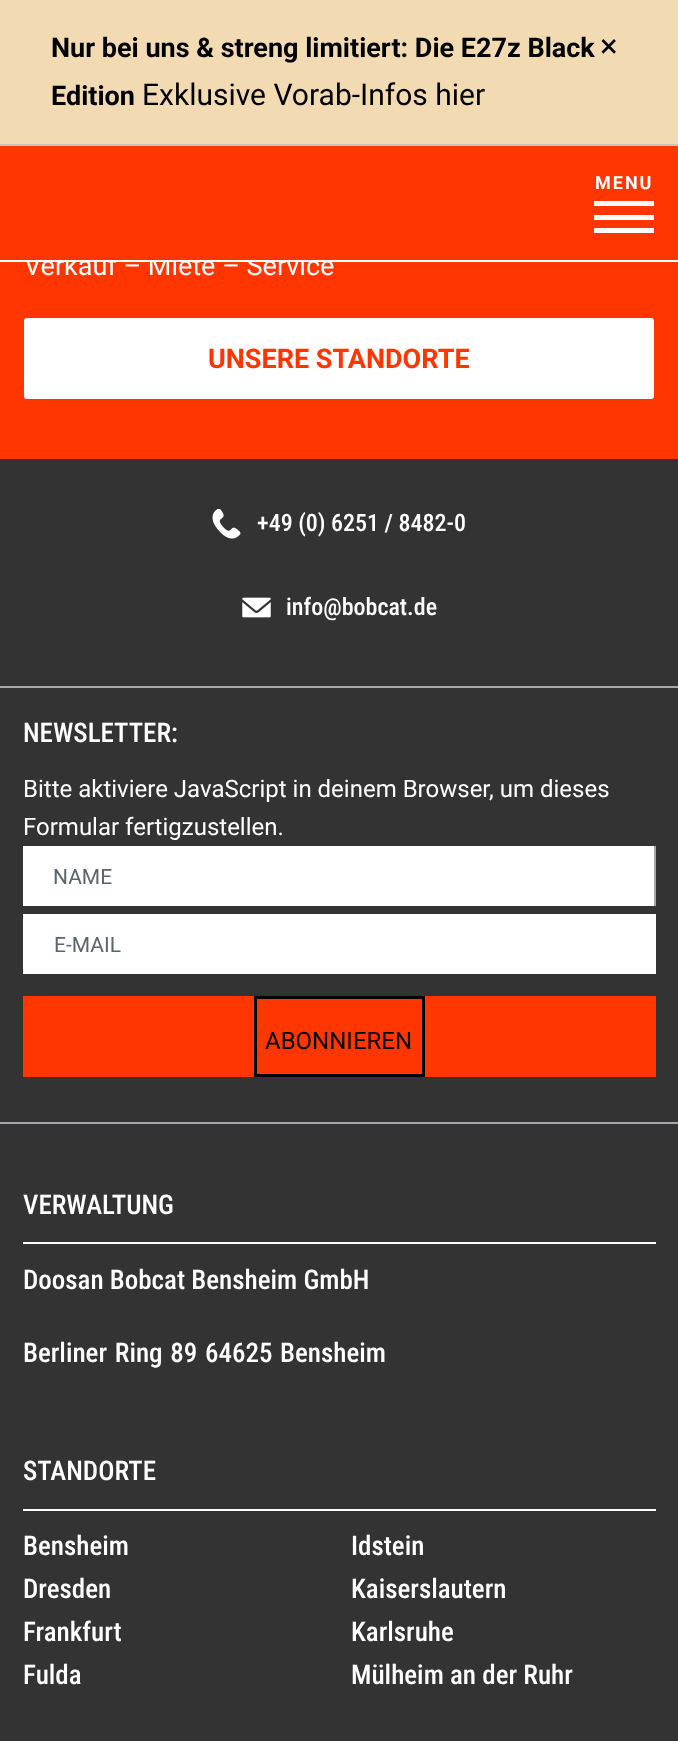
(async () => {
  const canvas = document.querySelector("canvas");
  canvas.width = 678;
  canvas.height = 1741;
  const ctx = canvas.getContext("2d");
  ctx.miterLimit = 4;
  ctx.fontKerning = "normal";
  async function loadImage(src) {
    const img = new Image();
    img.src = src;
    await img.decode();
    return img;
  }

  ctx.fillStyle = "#333333";
  ctx.fillRect(0, 0, 678, 1741);
  for (const [x, y, w, h, color] of [
    [0, 260, 678, 2, "#ffffff"],
    [0, 0, 678, 144, "#f2dab2"],
    [0, 144, 678, 2, "#c9c4bd"],
    [0, 262, 678, 197, "#ff3600"],
  ]) {
    ctx.fillStyle = color;
    ctx.fillRect(x, y, w, h);
  }
  ctx.fillStyle = "#ffffff";
  ctx.beginPath();
  ctx.roundRect(25, 319, 628, 79, 2);
  ctx.fill();
  ctx.strokeStyle = "#ffffff";
  ctx.lineWidth = 2;
  ctx.stroke();
  ctx.fillStyle = "#a3aaae";
  ctx.fillRect(0, 1122, 678, 2);
  ctx.fillRect(0, 686, 678, 2);
  ctx.drawImage(await loadImage("img/1.png"), 212, 509, 29, 30);
  ctx.drawImage(await loadImage("img/2.png"), 242, 597, 29, 21);
  for (const [x, y, w, h, color] of [
    [23, 846, 631, 60, "#ffffff"],
    [654, 846, 2, 60, "#a3aaae"],
    [23, 914, 633, 60, "#ffffff"],
    [23, 996, 633, 81, "#ff3600"],
  ]) {
    ctx.fillStyle = color;
    ctx.fillRect(x, y, w, h);
  }
  ctx.strokeStyle = "#000000";
  ctx.lineWidth = 3;
  ctx.strokeRect(255.5, 997.5, 168, 78);
  ctx.fillStyle = "#ffffff";
  ctx.fillRect(23, 1242, 633, 2);
  ctx.fillRect(23, 1509, 633, 2);
  ctx.font = "bold 27px Roboto";
  ctx.fillStyle = "#000000";
  ctx.fillText("Nur bei uns & streng limitiert: Die E27z Black", 51, 57);
  ctx.fillText("Edition", 51, 105);
  ctx.font = "30px Roboto";
  ctx.fillText("Exklusive Vorab-Infos hier", 142, 105);
  ctx.font = "33px Roboto";
  ctx.fillText("×", 600, 57);
  ctx.font = "27px Roboto";
  ctx.fillStyle = "#ffffff";
  ctx.fillText("Verkauf – Miete – Service", 24, 275);
  for (const [x, y, w, h, color] of [
    [0, 146, 678, 114, "#ff3600"],
    [594, 215, 60, 5, "#ffffff"],
    [594, 201, 60, 5, "#ffffff"],
    [594, 228, 60, 5, "#ffffff"],
  ]) {
    ctx.fillStyle = color;
    ctx.fillRect(x, y, w, h);
  }
  ctx.letterSpacing = "2px";
  ctx.font = "bold 18px Roboto";
  ctx.fillText("MENU", 595, 189);
  ctx.letterSpacing = "0px";
  ctx.font = "bold 27px Roboto";
  ctx.fillStyle = "#ff3600";
  ctx.fillText("UNSERE STANDORTE", 208, 368);
  ctx.font = "500 24px Roboto Condensed";
  ctx.fillStyle = "#ffffff";
  ctx.fillText("+49 (0) 6251 / 8482-0", 257, 531);
  ctx.fillText("info@bobcat.de", 286, 615);
  ctx.font = "500 27px Roboto Condensed";
  ctx.fillText("NEWSLETTER:", 23, 742);
  ctx.font = "24px Roboto";
  ctx.fillText("Bitte aktiviere JavaScript in deinem Browser, um dieses", 23, 797);
  ctx.fillText("Formular fertigzustellen.", 23, 835);
  ctx.font = "21px Roboto";
  ctx.fillStyle = "#5b656d";
  ctx.fillText("NAME", 53, 884);
  ctx.fillText("E-MAIL", 54, 952);
  ctx.font = "24px Roboto";
  ctx.fillStyle = "#000000";
  ctx.fillText("ABONNIEREN", 265, 1049);
  ctx.font = "500 27px Roboto Condensed";
  ctx.fillStyle = "#ffffff";
  ctx.fillText("VERWALTUNG", 23, 1214);
  ctx.fillText("Doosan Bobcat Bensheim GmbH", 23, 1289);
  ctx.wordSpacing = "1.5px";
  ctx.fillText("Berliner Ring 89 64625", 23, 1362);
  ctx.wordSpacing = "0px";
  for (const [text, x, y] of [
    ["Bensheim", 280, 1362],
    ["STANDORTE", 23, 1480],
    ["Bensheim", 23, 1555],
    ["Idstein", 351, 1555],
    ["Dresden", 23, 1598],
    ["Kaiserslautern", 351, 1598],
    ["Frankfurt", 23, 1641],
    ["Karlsruhe", 351, 1641],
    ["Fulda", 23, 1684],
    ["Mülheim an der Ruhr", 351, 1684],
  ]) {
    ctx.fillText(text, x, y);
  }
})();
